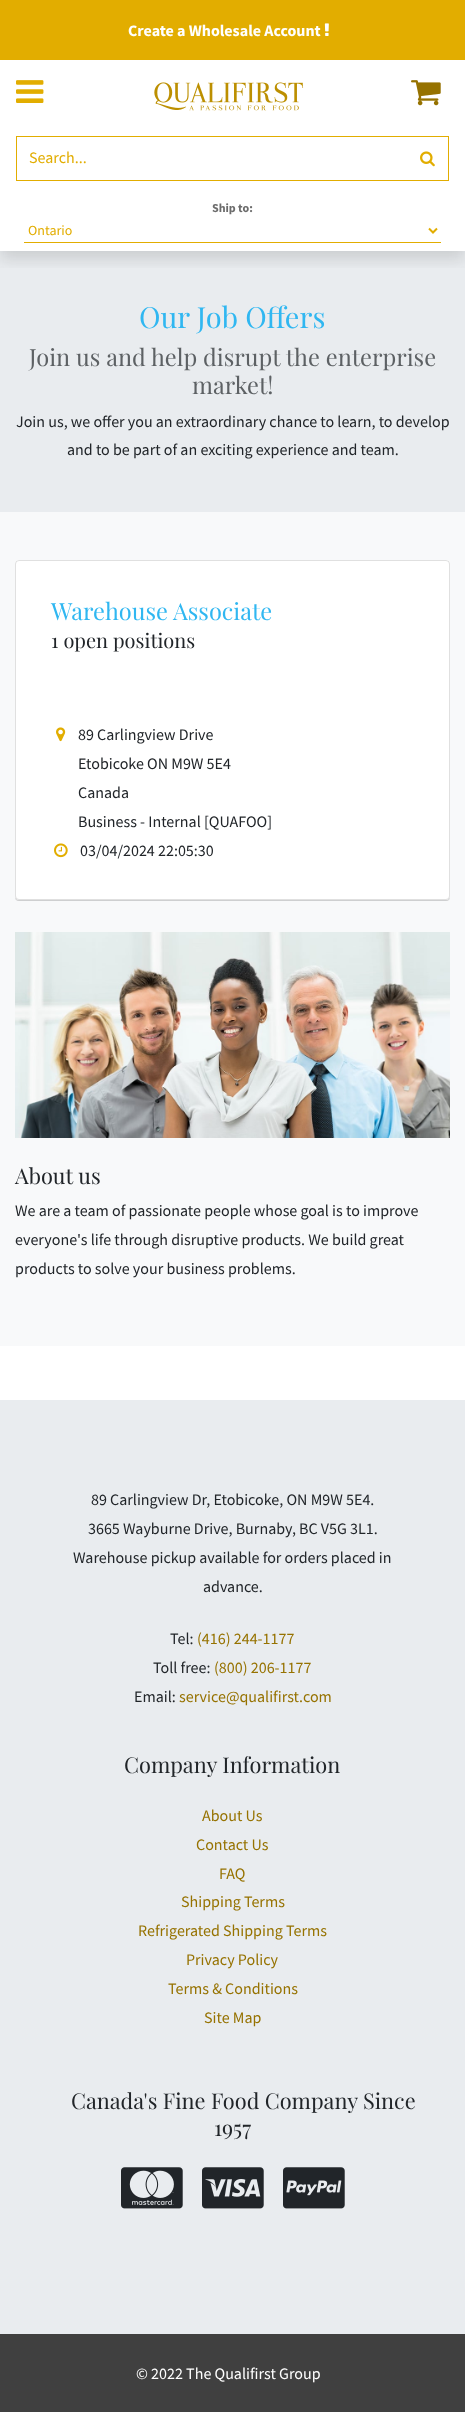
(async () => {
  const canvas = document.querySelector("canvas");
  canvas.width = 465;
  canvas.height = 2412;
  const ctx = canvas.getContext("2d");
  ctx.miterLimit = 4;
  ctx.fontKerning = "normal";
  async function loadImage(src) {
    const img = new Image();
    img.src = src;
    await img.decode();
    return img;
  }
  let path;

  ctx.fillStyle = "#ffffff";
  ctx.fillRect(0, 0, 465, 2412);
  ctx.fillStyle = "#e9ecef";
  ctx.fillRect(0, 251, 465, 261);
  ctx.save();
  ctx.beginPath();
  ctx.rect(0, 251, 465, 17);
  ctx.clip();
  ctx.fillStyle = "rgba(34, 34, 34, 0.15)";
  ctx.filter = "blur(8px)";
  ctx.beginPath();
  ctx.rect(0, 8, 465, 251);
  ctx.fill();
  ctx.filter = "none";
  ctx.restore();
  ctx.fillStyle = "#e2ad00";
  ctx.fillRect(0, 0, 465, 60);
  ctx.drawImage(await loadImage("img/1.png"), 324, 23, 5, 13);
  ctx.drawImage(await loadImage("img/2.png"), 16, 80, 28, 23);
  ctx.drawImage(await loadImage("img/3.png"), 154, 82, 150, 29);
  ctx.drawImage(await loadImage("img/4.png"), 411, 80, 30, 26);
  ctx.strokeStyle = "#e2ad00";
  ctx.strokeRect(16.5, 136.5, 432, 44);
  ctx.drawImage(await loadImage("img/5.png"), 420, 151, 15, 16);
  ctx.fillRect(24, 242, 417, 1);
  path = new Path2D("M429 228.5L433 232.5L437 228.5");
  ctx.lineWidth = 2;
  ctx.stroke(path);
  ctx.fillStyle = "#f8f9fa";
  ctx.fillRect(0, 512, 465, 834);
  ctx.fillStyle = "rgba(0, 0, 0, 0.17)";
  ctx.filter = "blur(0.5px)";
  ctx.beginPath();
  ctx.roundRect(15, 561, 435, 340, 4);
  ctx.fill();
  ctx.filter = "none";
  ctx.fillStyle = "#ffffff";
  ctx.beginPath();
  ctx.roundRect(15, 560, 435, 340, 4);
  ctx.fill();
  ctx.beginPath();
  ctx.roundRect(15.5, 560.5, 434, 339, 3.5);
  ctx.strokeStyle = "rgba(0, 0, 0, 0.12)";
  ctx.lineWidth = 1;
  ctx.stroke();
  ctx.drawImage(await loadImage("img/6.png"), 56, 727, 10, 15);
  ctx.drawImage(await loadImage("img/7.png"), 54, 843, 14, 15);
  ctx.drawImage(await loadImage("img/8.png"), 15, 932, 435, 206);
  ctx.fillStyle = "#e9ecef";
  ctx.fillRect(0, 1400, 465, 934);
  ctx.drawImage(await loadImage("img/9.png"), 121, 2167, 62, 42);
  ctx.drawImage(await loadImage("img/10.png"), 202, 2167, 62, 42);
  ctx.drawImage(await loadImage("img/11.png"), 283, 2167, 62, 42);
  ctx.fillStyle = "#404040";
  ctx.fillRect(0, 2334, 465, 78);
  ctx.font = "bold 16px Source Sans Pro";
  ctx.fillStyle = "#ffffff";
  ctx.fillText("Create a Wholesale Account", 128, 36);
  ctx.font = "16px Source Sans Pro";
  ctx.fillStyle = "#e2ad00";
  ctx.fillText("Search...", 29, 163);
  ctx.font = "bold 12px Source Sans Pro";
  ctx.fillStyle = "#6c6c6c";
  ctx.fillText("Ship to:", 212, 212);
  ctx.font = "14px Source Sans Pro";
  ctx.fillStyle = "#e2ad00";
  ctx.fillText("Ontario", 28, 235);
  ctx.font = "29px Playfair Display";
  ctx.fillStyle = "#30b7f1";
  ctx.fillText("Our Job Offers", 139, 328);
  ctx.font = "23.6px Playfair Display";
  ctx.fillStyle = "#5d6164";
  ctx.fillText("Join us and help disrupt the enterprise", 29, 366);
  ctx.fillText("market!", 192, 394);
  ctx.font = "16px Source Sans Pro";
  ctx.fillStyle = "#212529";
  ctx.fillText("Join us, we offer you an extraordinary chance to learn, to develop", 16, 427);
  ctx.fillText("and to be part of an exciting experience and team.", 67, 455);
  ctx.font = "23.6px Playfair Display";
  ctx.fillStyle = "#30b7f1";
  ctx.fillText("Warehouse Associate", 51, 620);
  ctx.font = "20px Playfair Display";
  ctx.fillStyle = "#212529";
  ctx.fillText("1 open positions", 51, 648);
  ctx.font = "16px Source Sans Pro";
  for (const [text, x, y] of [
    ["89 Carlingview Drive", 78, 740],
    ["Etobicoke ON M9W 5E4", 78, 769],
    ["Canada", 78, 798],
    ["Business - Internal [QUAFOO]", 78, 827],
    ["03/04/2024 22:05:30", 80, 856],
  ]) {
    ctx.fillText(text, x, y);
  }
  ctx.font = "21.75px Playfair Display";
  ctx.fillText("About us", 15, 1184);
  ctx.font = "16px Source Sans Pro";
  for (const [text, x, y] of [
    ["We are a team of passionate people whose goal is to improve", 15, 1216],
    ["everyone's life through disruptive products. We build great", 15, 1245],
    ["products to solve your business problems.", 15, 1274],
    ["89 Carlingview Dr, Etobicoke, ON M9W 5E4.", 91, 1505],
    ["3665 Wayburne Drive, Burnaby, BC V5G 3L1.", 88, 1534],
    ["Warehouse pickup available for orders placed in", 73, 1563],
    ["advance.", 203, 1592],
    ["Tel:", 170, 1644],
  ]) {
    ctx.fillText(text, x, y);
  }
  ctx.fillStyle = "#967200";
  ctx.fillText("(416) 244-1177", 197, 1644);
  ctx.fillStyle = "#212529";
  ctx.fillText("Toll free:", 153, 1673);
  ctx.fillStyle = "#967200";
  ctx.fillText("(800) 206-1177", 214, 1673);
  ctx.fillStyle = "#212529";
  ctx.fillText("Email:", 134, 1702);
  ctx.fillStyle = "#967200";
  ctx.fillText("service@qualifirst.com", 179, 1702);
  ctx.font = "21.75px Playfair Display";
  ctx.fillStyle = "#212529";
  ctx.fillText("Company Information", 124, 1773);
  ctx.font = "16px Source Sans Pro";
  ctx.fillStyle = "#967200";
  for (const [text, x, y] of [
    ["About Us", 202, 1821],
    ["Contact Us", 196, 1850],
    ["FAQ", 219, 1879],
    ["Shipping Terms", 181, 1907],
    ["Refrigerated Shipping Terms", 138, 1936],
    ["Privacy Policy", 186, 1965],
    ["Terms & Conditions", 168, 1994],
    ["Site Map", 204, 2023],
  ]) {
    ctx.fillText(text, x, y);
  }
  ctx.font = "21.75px Playfair Display";
  ctx.fillStyle = "#212529";
  ctx.fillText("Canada's Fine Food Company Since", 71, 2109);
  ctx.fillText("1957", 214, 2136);
  ctx.font = "16px Source Sans Pro";
  ctx.fillStyle = "#ffffff";
  ctx.fillText("© 2022 The Qualifirst Group", 136, 2379);
})();
